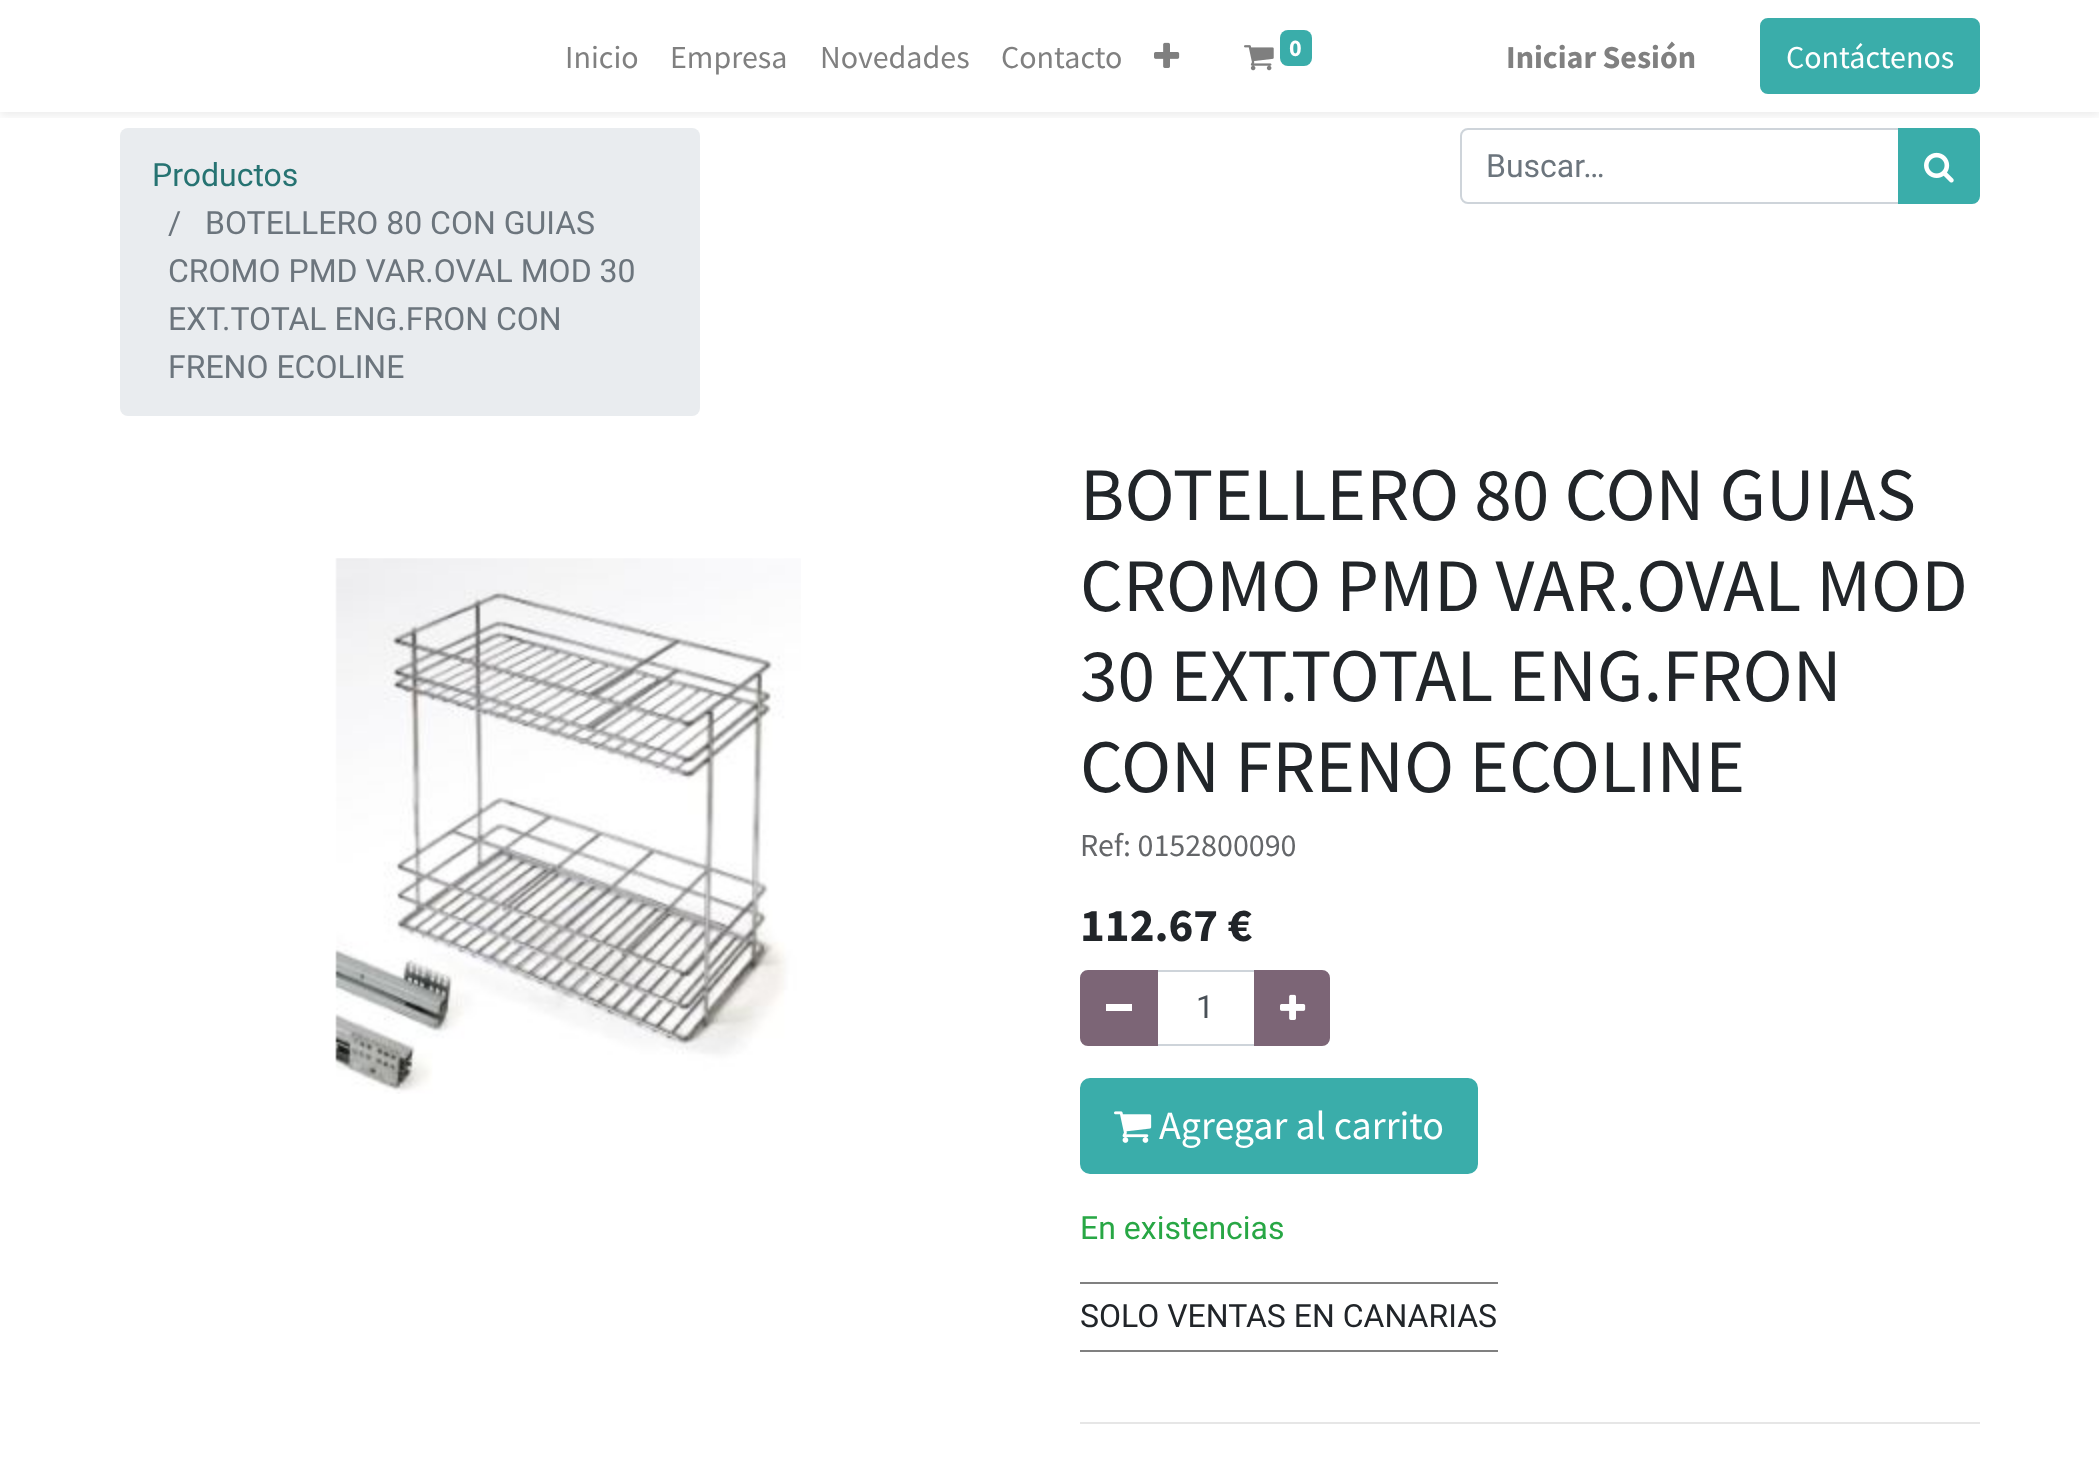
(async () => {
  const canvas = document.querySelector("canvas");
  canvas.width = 2099;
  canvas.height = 1458;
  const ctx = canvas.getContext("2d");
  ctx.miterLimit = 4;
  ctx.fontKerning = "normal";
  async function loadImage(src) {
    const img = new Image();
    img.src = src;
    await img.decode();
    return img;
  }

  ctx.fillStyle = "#ffffff";
  ctx.fillRect(0, 0, 2099, 1458);
  ctx.fillStyle = "#e9ecef";
  ctx.beginPath();
  ctx.roundRect(120, 128, 580, 288, 8);
  ctx.fill();
  ctx.beginPath();
  ctx.roundRect(1461, 129, 438, 74, [7, 0, 0, 7]);
  ctx.strokeStyle = "#ced4da";
  ctx.lineWidth = 2;
  ctx.stroke();
  ctx.fillStyle = "#3aadaa";
  ctx.beginPath();
  ctx.roundRect(1899, 129, 80, 74, [0, 7, 7, 0]);
  ctx.fill();
  ctx.strokeStyle = "#3aadaa";
  ctx.stroke();
  ctx.save();
  ctx.beginPath();
  ctx.rect(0, 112, 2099, 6);
  ctx.clip();
  ctx.fillStyle = "rgba(0, 0, 0, 0.07)";
  ctx.filter = "blur(4px)";
  ctx.beginPath();
  ctx.rect(0, 4, 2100, 112);
  ctx.fill();
  ctx.filter = "none";
  ctx.restore();
  ctx.drawImage(await loadImage("img/1.png"), 1154, 42, 26, 26);
  ctx.drawImage(await loadImage("img/2.png"), 1244, 45, 30, 26);
  ctx.beginPath();
  ctx.roundRect(1280, 30, 32, 36, 8);
  ctx.fill();
  ctx.beginPath();
  ctx.roundRect(1761, 19, 218, 74, 7);
  ctx.fill();
  ctx.stroke();
  ctx.drawImage(await loadImage("img/3.png"), 1924, 152, 30, 31);
  ctx.drawImage(await loadImage("img/4.png"), 335, 558, 466, 536);
  ctx.strokeStyle = "#ced4da";
  ctx.strokeRect(1157, 971, 98, 74);
  ctx.fillStyle = "#7c6576";
  ctx.beginPath();
  ctx.roundRect(1081, 971, 76, 74, [7, 0, 0, 7]);
  ctx.fill();
  ctx.strokeStyle = "#7c6576";
  ctx.stroke();
  ctx.fillStyle = "#ffffff";
  ctx.fillRect(1106, 1004, 26, 7);
  ctx.fillStyle = "#7c6576";
  ctx.beginPath();
  ctx.roundRect(1255, 971, 74, 74, [0, 7, 7, 0]);
  ctx.fill();
  ctx.stroke();
  ctx.drawImage(await loadImage("img/5.png"), 1280, 994, 26, 26);
  ctx.fillStyle = "#3aadaa";
  ctx.beginPath();
  ctx.roundRect(1081, 1079, 396, 94, 9);
  ctx.fill();
  ctx.strokeStyle = "#3aadaa";
  ctx.stroke();
  ctx.drawImage(await loadImage("img/6.png"), 1114, 1111, 38, 32);
  for (const [x, y, w, h, color] of [
    [1080, 1282, 418, 2, "#808080"],
    [1080, 1350, 418, 2, "#808080"],
    [1080, 1422, 900, 2, "#e6e6e6"],
  ]) {
    ctx.fillStyle = color;
    ctx.fillRect(x, y, w, h);
  }
  ctx.font = "32px Source Sans Pro";
  ctx.fillStyle = "#808080";
  for (const [text, x, y] of [
    ["Inicio", 565, 68],
    ["Empresa", 670, 68],
    ["Novedades", 820, 68],
    ["Contacto", 1001, 68],
  ]) {
    ctx.fillText(text, x, y);
  }
  ctx.font = "bold 24px Source Sans Pro";
  ctx.fillStyle = "#ffffff";
  ctx.fillText("0", 1289, 56);
  ctx.font = "bold 32px Source Sans Pro";
  ctx.fillStyle = "#808080";
  ctx.fillText("Iniciar Sesión", 1506, 68);
  ctx.font = "32px Source Sans Pro";
  ctx.fillStyle = "#ffffff";
  ctx.fillText("Contáctenos", 1786, 68);
  ctx.font = "32px Roboto";
  ctx.fillStyle = "#267372";
  ctx.fillText("Productos", 152, 186);
  ctx.fillStyle = "#6c757d";
  for (const [text, x, y] of [
    ["/", 168, 234],
    ["BOTELLERO 80 CON GUIAS", 205, 234],
    ["CROMO PMD VAR.OVAL MOD 30", 168, 282],
    ["EXT.TOTAL ENG.FRON CON", 168, 330],
    ["FRENO ECOLINE", 168, 378],
    ["Buscar…", 1486, 177],
  ]) {
    ctx.fillText(text, x, y);
  }
  ctx.font = "75.5px Source Sans Pro";
  ctx.fillStyle = "#212529";
  for (const [text, x, y] of [
    ["BOTELLERO 80 CON GUIAS", 1080, 520],
    ["CROMO PMD VAR.OVAL MOD", 1080, 611],
    ["30 EXT.TOTAL ENG.FRON", 1080, 701],
    ["CON FRENO ECOLINE", 1080, 792],
  ]) {
    ctx.fillText(text, x, y);
  }
  ctx.font = "32px Source Sans Pro";
  ctx.fillStyle = "#646669";
  ctx.fillText("Ref: 0152800090", 1080, 856);
  ctx.font = "bold 47px Source Sans Pro";
  ctx.fillStyle = "#212529";
  ctx.fillText("112.67 €", 1080, 941);
  ctx.font = "32px Roboto";
  ctx.fillStyle = "#495057";
  ctx.fillText("1", 1196, 1018);
  ctx.font = "40px Source Sans Pro";
  ctx.fillStyle = "#ffffff";
  ctx.fillText("Agregar al carrito", 1159, 1139);
  ctx.font = "32px Roboto";
  ctx.fillStyle = "#28a745";
  ctx.fillText("En existencias", 1080, 1239);
  ctx.fillStyle = "#212529";
  ctx.fillText("SOLO VENTAS EN CANARIAS", 1080, 1327);
})();
